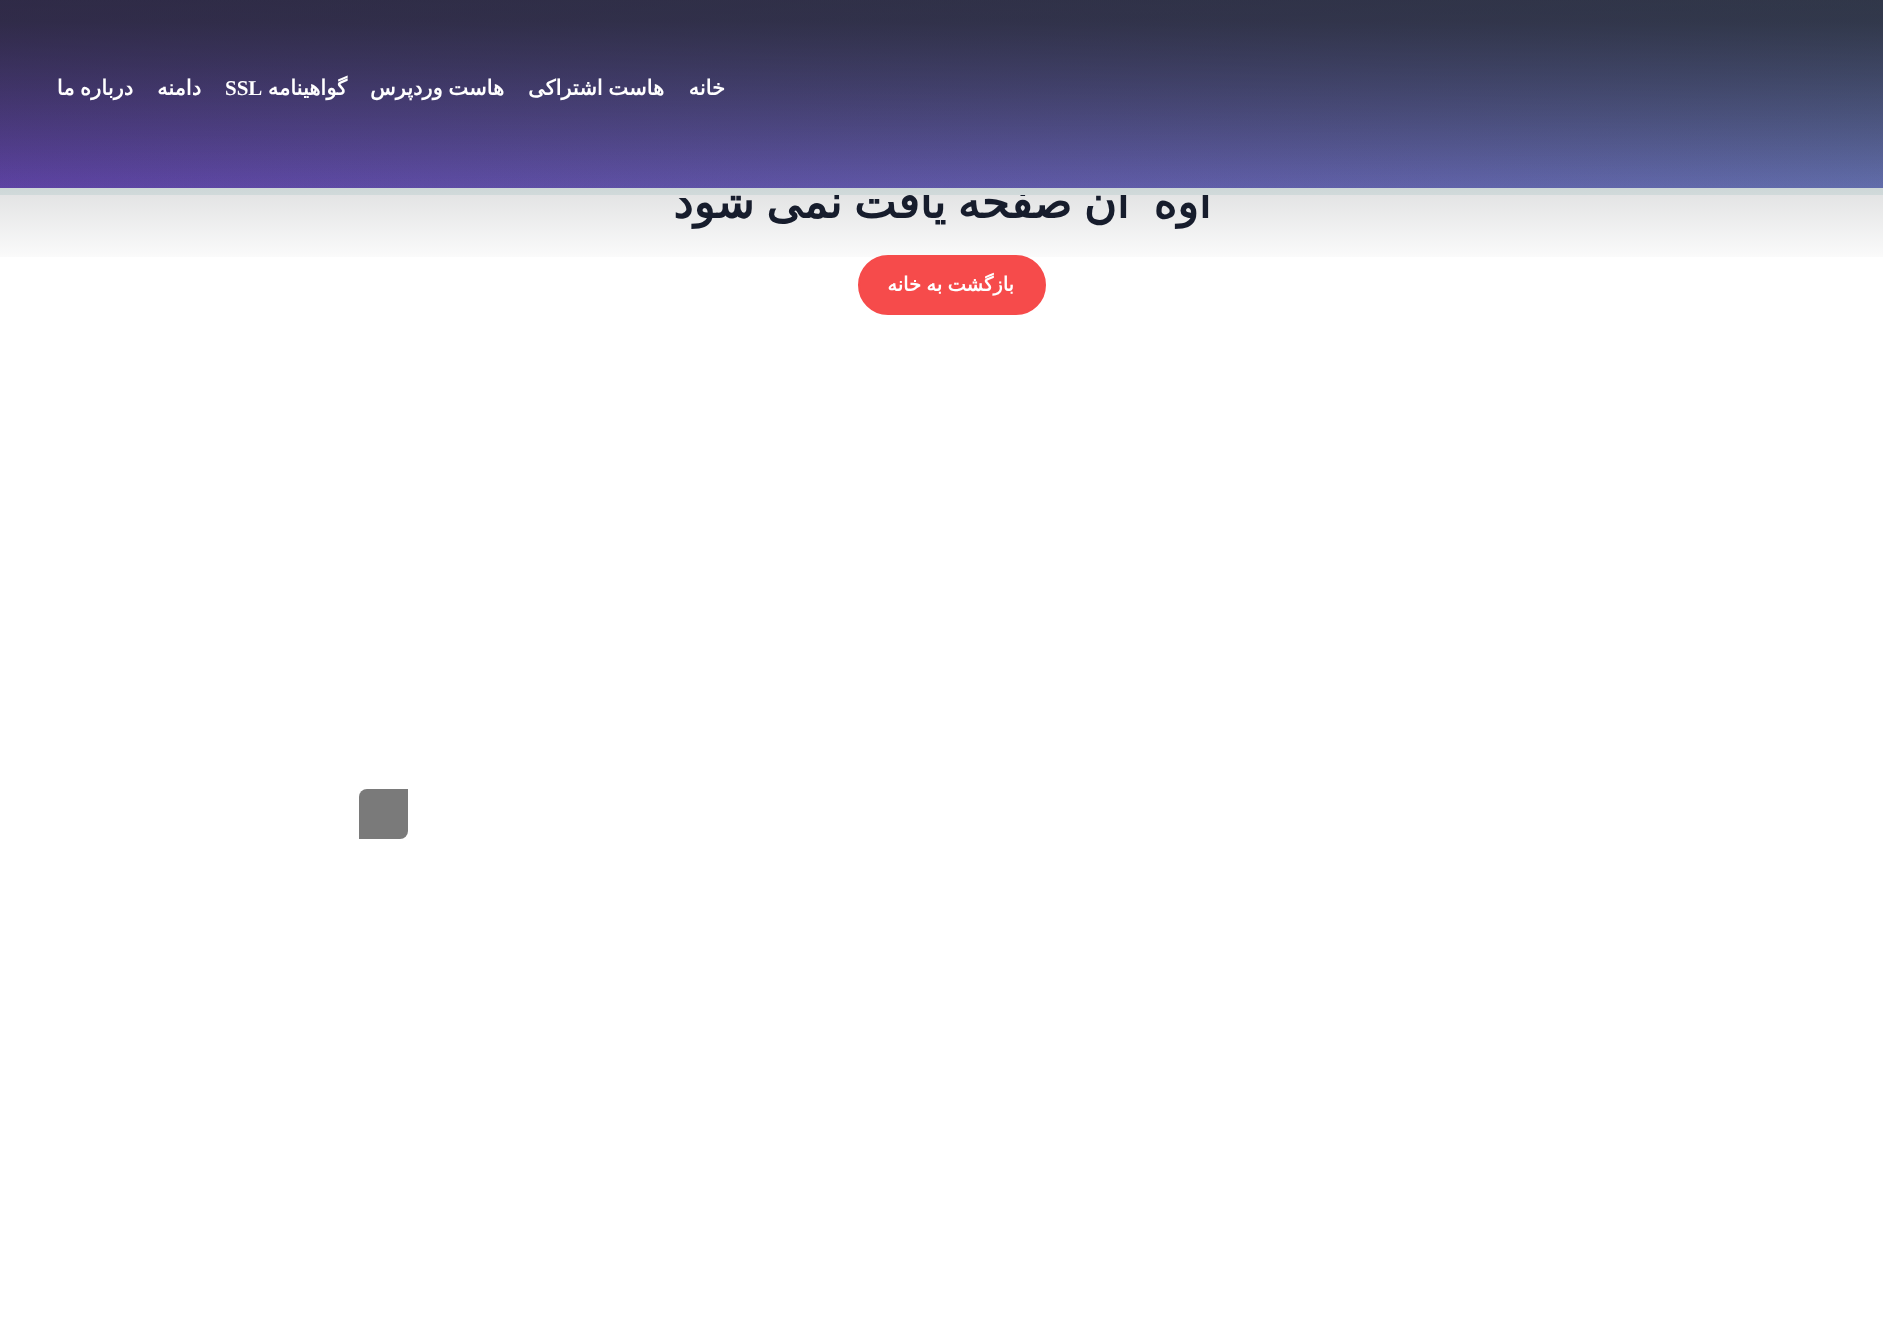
(async () => {
  const canvas = document.querySelector("canvas");
  canvas.width = 1883;
  canvas.height = 1323;
  const ctx = canvas.getContext("2d");
  ctx.miterLimit = 4;
  ctx.fontKerning = "normal";
  let gradient;

  ctx.fillStyle = "#ffffff";
  ctx.fillRect(0, 0, 1883, 1323);
  ctx.fillStyle = "#7a7a7a";
  ctx.beginPath();
  ctx.roundRect(359, 789, 49, 50, [8, 0, 8, 0]);
  ctx.fill();
  ctx.direction = "rtl";
  ctx.font = "bold 45px DejaVu Sans";
  ctx.fillStyle = "#161c2d";
  ctx.fillText("اوه", 1211, 218);
  ctx.wordSpacing = "-2.5px";
  ctx.fillText("آن صفحه یافت نمی شود", 1129, 218);
  ctx.fillStyle = "#e9f3f3";
  ctx.fillRect(0, 188, 1883, 7);
  gradient = ctx.createLinearGradient(1696, 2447, 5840, -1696);
  gradient.addColorStop(0, "#673ab7");
  gradient.addColorStop(0.74, "#79dbd5");
  ctx.fillStyle = gradient;
  ctx.fillRect(0, 0, 1883, 188);
  gradient = ctx.createLinearGradient(942, 270, 942, 0);
  gradient.addColorStop(0, "rgba(29, 35, 39, 0)");
  gradient.addColorStop(1, "rgba(29, 35, 39, 0.44)");
  ctx.fillStyle = gradient;
  ctx.fillRect(0, 0, 1883, 257);
  gradient = ctx.createLinearGradient(942, 0, 942, 195);
  gradient.addColorStop(0.11, "rgba(27, 29, 29, 0.55)");
  gradient.addColorStop(1, "rgba(27, 29, 29, 0)");
  ctx.fillStyle = gradient;
  ctx.fillRect(0, 0, 1883, 188);
  ctx.wordSpacing = "-1px";
  ctx.font = "bold 21px DejaVu Sans";
  ctx.fillStyle = "#ffffff";
  ctx.fillText("درباره ما", 133, 95);
  ctx.wordSpacing = "0px";
  ctx.fillText("دامنه", 201, 95);
  ctx.fillText("گواهینامه", 347, 95);
  ctx.direction = "ltr";
  ctx.font = "bold 21px Liberation Serif";
  ctx.fillText("SSL", 225, 95);
  ctx.wordSpacing = "-1px";
  ctx.direction = "rtl";
  ctx.font = "bold 21px DejaVu Sans";
  ctx.fillText("هاست وردپرس", 504, 95);
  ctx.fillText("هاست اشتراکی", 664, 95);
  ctx.wordSpacing = "0px";
  ctx.fillText("خانه", 725, 95);
  ctx.fillStyle = "#f64b4b";
  ctx.beginPath();
  ctx.roundRect(859, 256, 186, 58, 29);
  ctx.fill();
  ctx.strokeStyle = "#f64b4b";
  ctx.lineWidth = 2;
  ctx.stroke();
  ctx.wordSpacing = "-1px";
  ctx.font = "bold 19.5px DejaVu Sans";
  ctx.fillStyle = "#ffffff";
  ctx.fillText("بازگشت به خانه", 1014, 291);
})();
